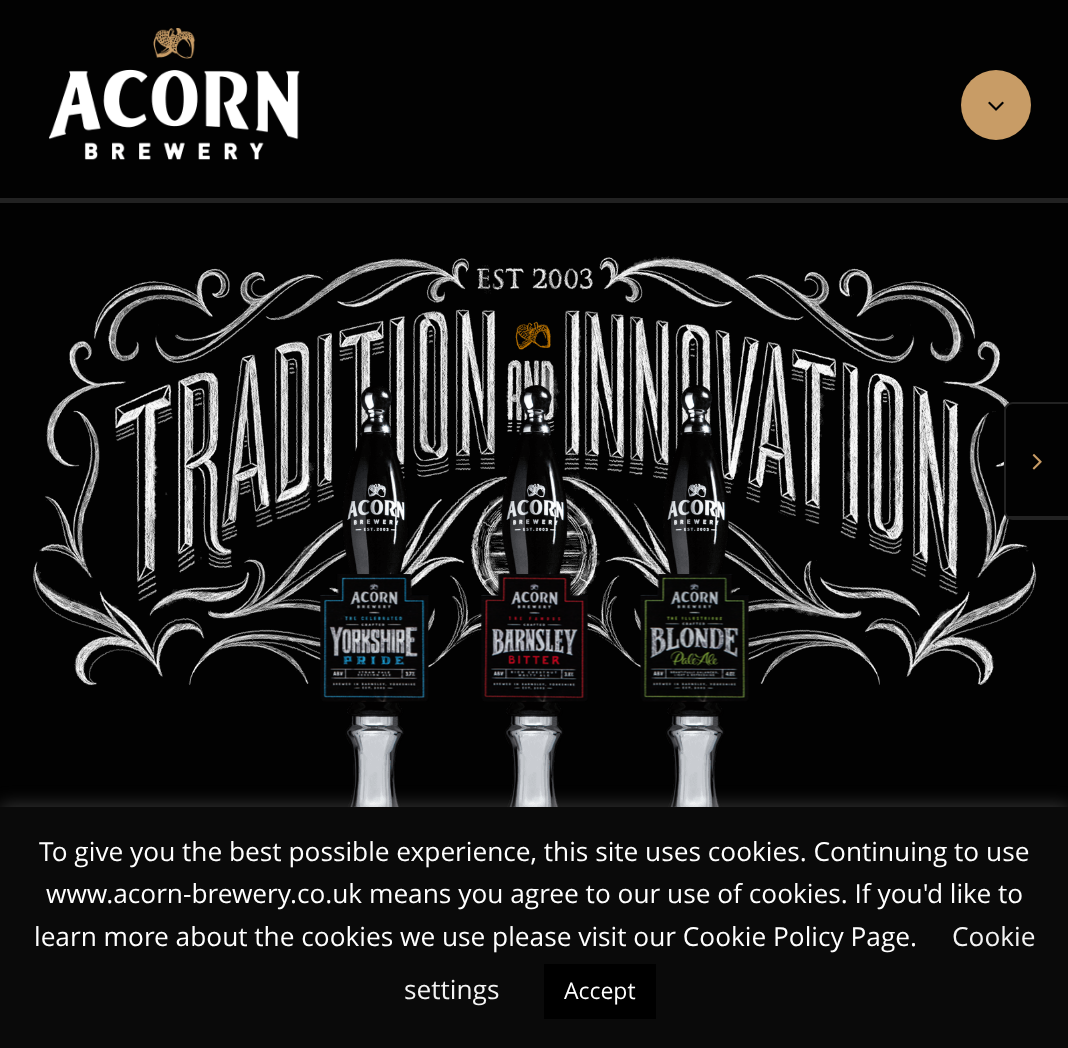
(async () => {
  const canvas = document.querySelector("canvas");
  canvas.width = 1068;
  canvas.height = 1048;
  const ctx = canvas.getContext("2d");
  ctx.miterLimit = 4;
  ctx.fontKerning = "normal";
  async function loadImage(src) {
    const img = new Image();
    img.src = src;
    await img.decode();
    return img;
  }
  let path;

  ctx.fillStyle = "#020202";
  ctx.fillRect(0, 0, 1068, 1048);
  ctx.fillStyle = "#222222";
  ctx.fillRect(0, 198, 1068, 5);
  ctx.drawImage(await loadImage("img/1.png"), 49, 28, 251, 132);
  ctx.fillStyle = "#c89c66";
  ctx.beginPath();
  ctx.arc(996, 105, 35, 0, Math.PI * 2);
  ctx.fill();
  ctx.drawImage(await loadImage("img/2.png"), 988, 101, 16, 10);
  ctx.drawImage(await loadImage("img/3.png"), 32, 256, 1005, 430);
  ctx.drawImage(await loadImage("img/4.png"), 342, 386, 67, 421);
  ctx.drawImage(await loadImage("img/5.png"), 320, 574, 109, 128);
  ctx.drawImage(await loadImage("img/6.png"), 501, 385, 67, 422);
  ctx.drawImage(await loadImage("img/7.png"), 481, 574, 107, 128);
  ctx.drawImage(await loadImage("img/8.png"), 662, 385, 67, 422);
  ctx.drawImage(await loadImage("img/9.png"), 640, 574, 109, 128);
  ctx.fillStyle = "#020202";
  path = new Path2D("M1014 403H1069V520H1014C1009 520 1005 516 1005 511V412C1005 407 1009 403 1014 403Z");
  ctx.fill(path);
  ctx.fillStyle = "#222222";
  path = new Path2D("M1013 402H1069V520H1013C1008 520 1004 516 1004 511V411C1004 406 1008 402 1013 402ZM1013 404H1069V518H1013C1009 518 1006 515 1006 511V411C1006 407 1009 404 1013 404Z");
  ctx.fill(path, "evenodd");
  ctx.fillRect(1006, 516, 62, 2);
  ctx.drawImage(await loadImage("img/10.png"), 1032, 454, 10, 16);
  ctx.fillStyle = "rgba(172, 171, 171, 0.3)";
  ctx.filter = "blur(9px)";
  ctx.beginPath();
  ctx.rect(0, 805, 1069, 242);
  ctx.fill();
  ctx.filter = "none";
  ctx.fillStyle = "#0a0a0a";
  ctx.fillRect(0, 807, 1068, 241);
  ctx.fillStyle = "#000000";
  ctx.fillRect(544, 964, 112, 55);
  ctx.font = "26.25px Open Sans";
  ctx.fillStyle = "#ffffff";
  for (const [text, x, y] of [
    ["To give you the best possible experience, this site uses cookies. Continuing to use", 39, 861],
    ["www.acorn-brewery.co.uk means you agree to our use of cookies. If you'd like to", 46, 903],
    ["learn more about the cookies we use please visit our Cookie Policy Page.", 34, 946],
  ]) {
    ctx.fillText(text, x, y);
  }
  ctx.fillStyle = "#f4f4f4";
  ctx.fillText("Cookie", 952, 946);
  ctx.fillText("settings", 404, 999);
  ctx.font = "23px Open Sans";
  ctx.fillStyle = "#ffffff";
  ctx.fillText("Accept", 564, 999);
})();
